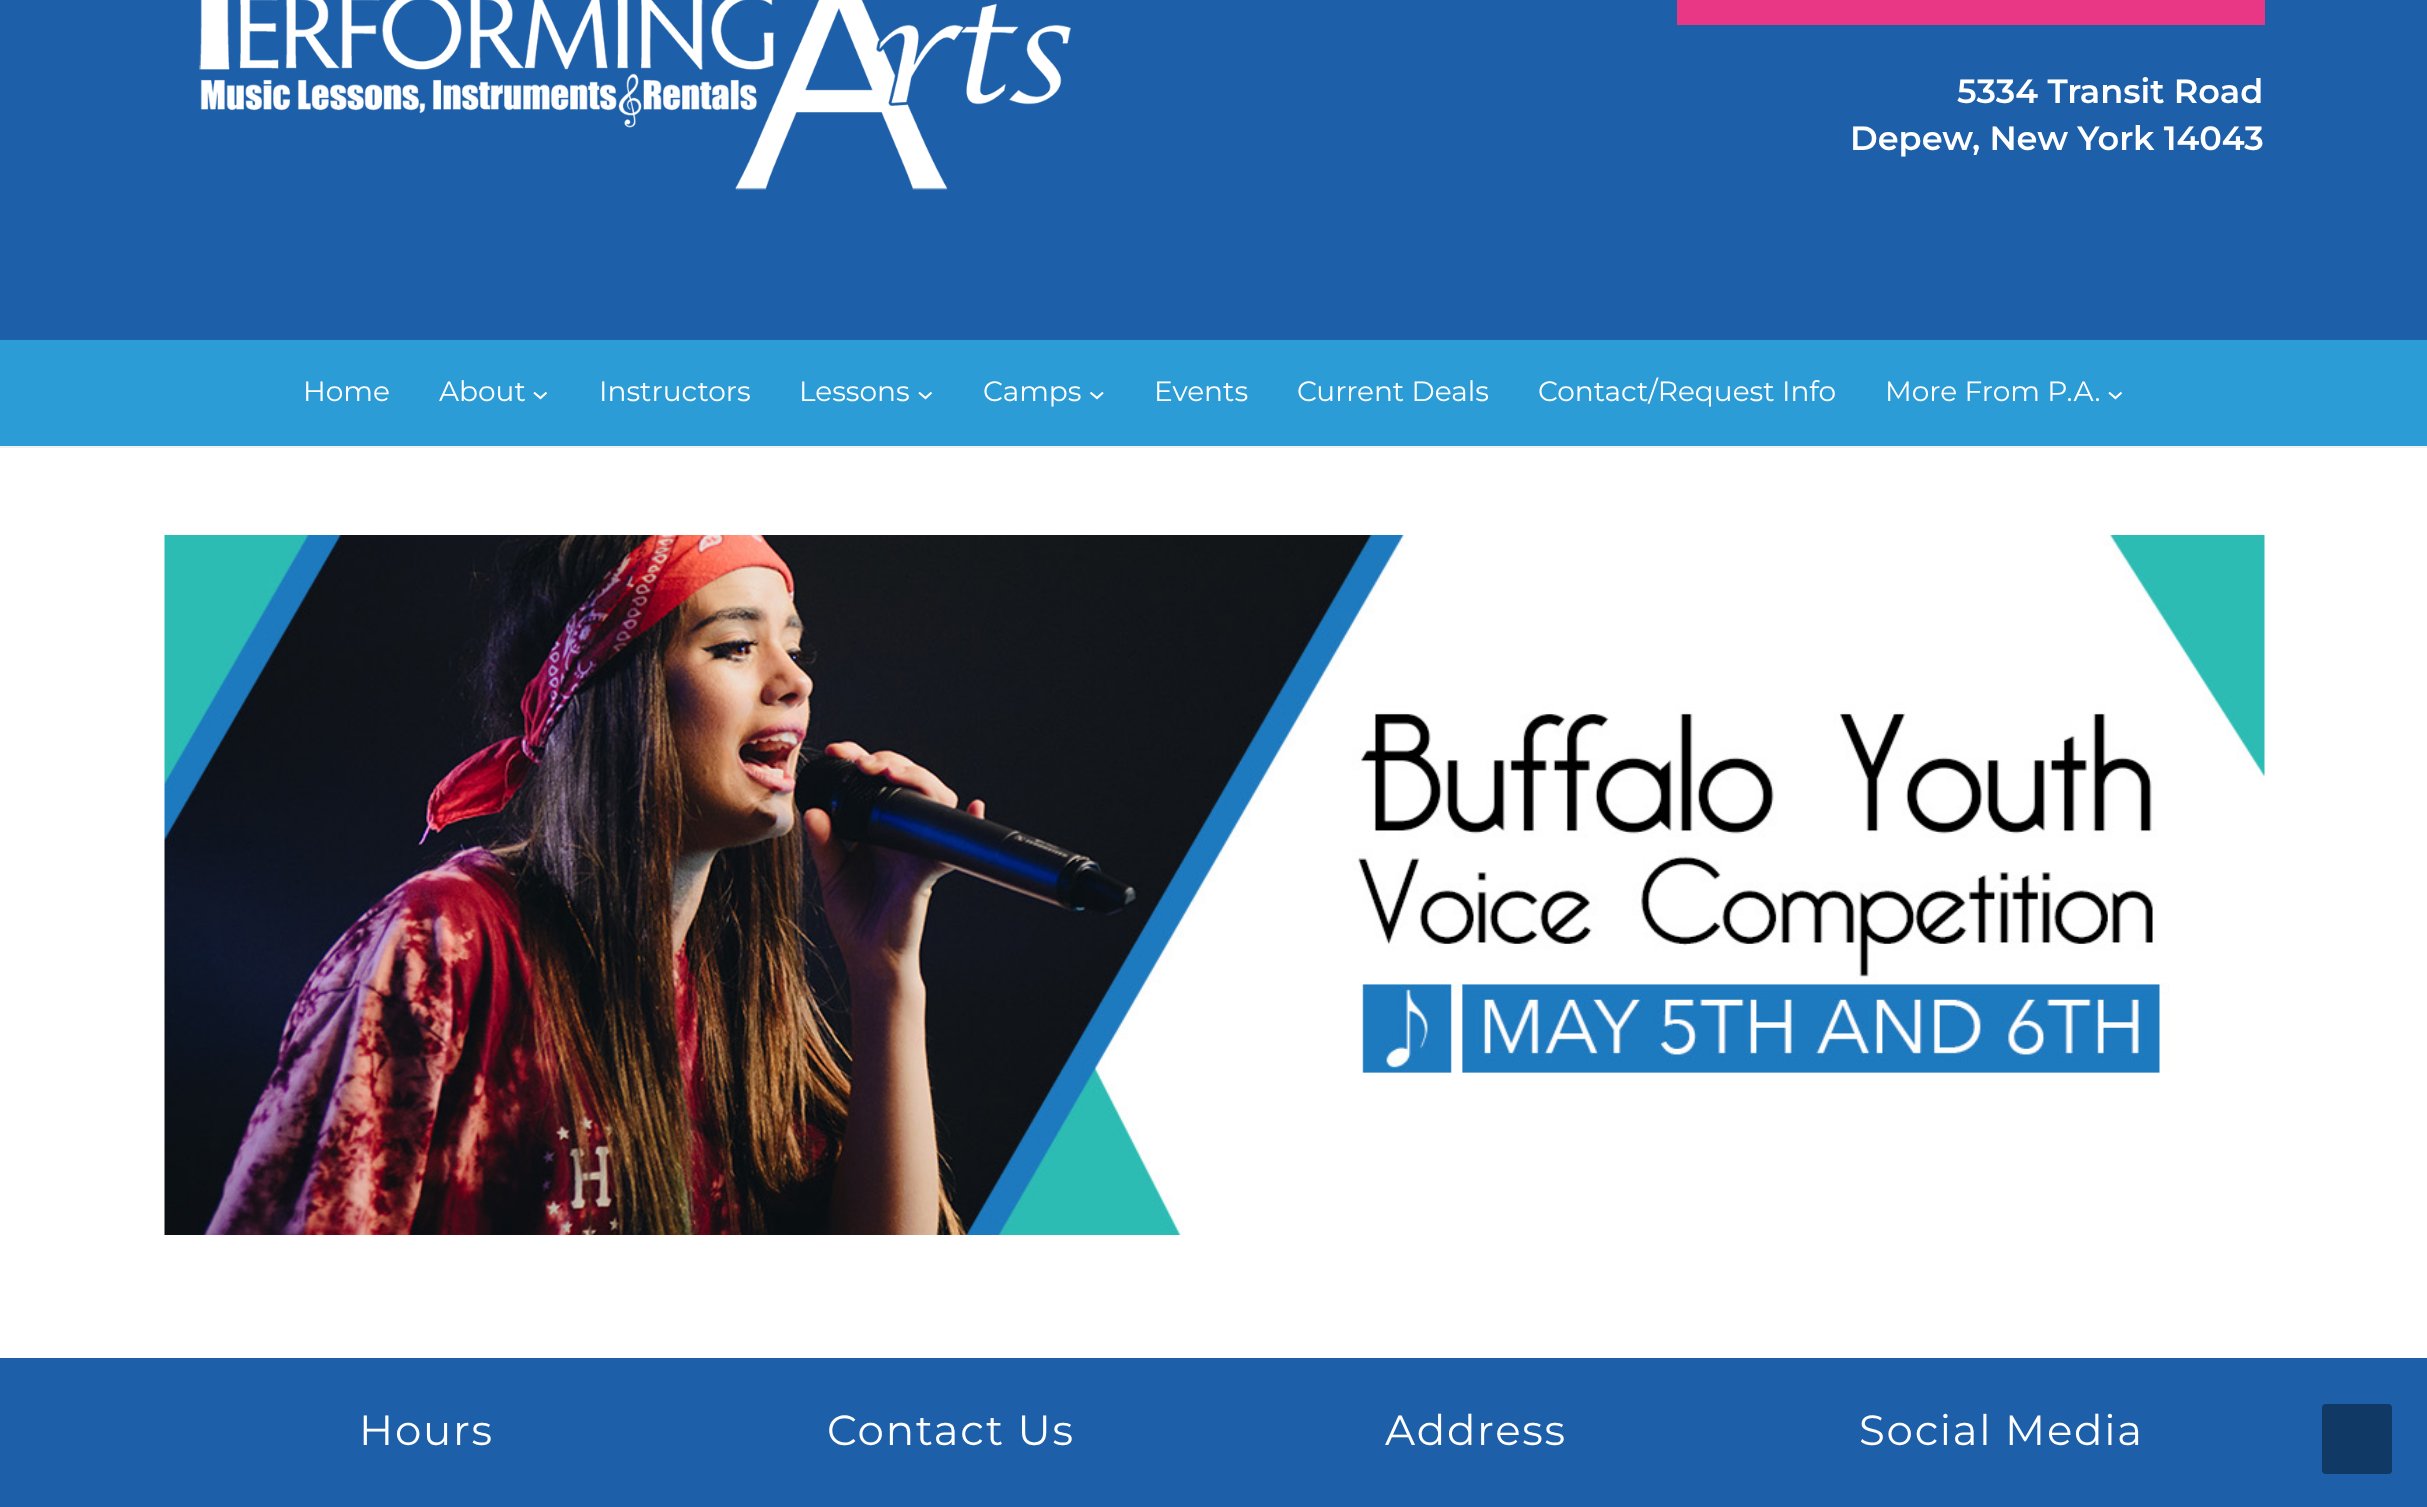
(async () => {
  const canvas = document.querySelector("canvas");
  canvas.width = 2427;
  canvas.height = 1507;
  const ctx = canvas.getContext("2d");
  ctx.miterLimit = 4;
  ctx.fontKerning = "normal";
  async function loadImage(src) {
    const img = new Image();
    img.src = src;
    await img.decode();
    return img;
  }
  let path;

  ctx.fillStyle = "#ffffff";
  ctx.fillRect(0, 0, 2427, 1507);
  ctx.fillStyle = "#f1f1f1";
  ctx.fillRect(0, 446, 2427, 2);
  ctx.fillStyle = "#1d5fa9";
  ctx.fillRect(0, 0, 2427, 340);
  ctx.drawImage(await loadImage("img/1.png"), 199, 0, 872, 190);
  ctx.fillStyle = "#e93785";
  ctx.fillRect(1677, 0, 588, 25);
  ctx.fillStyle = "#2b9cd6";
  ctx.fillRect(0, 340, 2427, 106);
  path = new Path2D("M534 392.5L540.5 398L546.5 392.5");
  ctx.strokeStyle = "#ffffff";
  ctx.lineWidth = 2.1;
  ctx.stroke(path);
  path = new Path2D("M919 392.5L925.5 398L931.5 392.5");
  ctx.stroke(path);
  path = new Path2D("M1090.5 392.5L1097 398L1103 392.5");
  ctx.stroke(path);
  path = new Path2D("M2109 392.5L2115.5 398L2121.5 392.5");
  ctx.stroke(path);
  ctx.drawImage(await loadImage("img/2.png"), 164, 535, 2101, 700);
  ctx.fillStyle = "#1d5fa9";
  ctx.fillRect(0, 1358, 2427, 149);
  ctx.fillStyle = "#113965";
  ctx.beginPath();
  ctx.roundRect(2322, 1404, 70, 70, 4);
  ctx.fill();
  ctx.font = "600 33.6px Montserrat";
  ctx.fillStyle = "#ffffff";
  ctx.fillText("5334 Transit Road", 1957, 103);
  ctx.fillText("Depew, New York 14043", 1850, 150);
  ctx.font = "100 28px Montserrat";
  for (const [text, x, y] of [
    ["Home", 303, 401],
    ["About", 439, 401],
    ["Instructors", 599, 401],
    ["Lessons", 799, 401],
    ["Camps", 983, 401],
    ["Events", 1154, 401],
    ["Current Deals", 1297, 401],
    ["Contact/Request Info", 1538, 401],
    ["More From P.A.", 1885, 401],
  ]) {
    ctx.fillText(text, x, y);
  }
  ctx.letterSpacing = "1.75px";
  ctx.font = "100 42px Montserrat";
  for (const [text, x, y] of [
    ["Hours", 359, 1445],
    ["Contact Us", 827, 1445],
    ["Address", 1385, 1445],
    ["Social Media", 1859, 1445],
  ]) {
    ctx.fillText(text, x, y);
  }
})();
